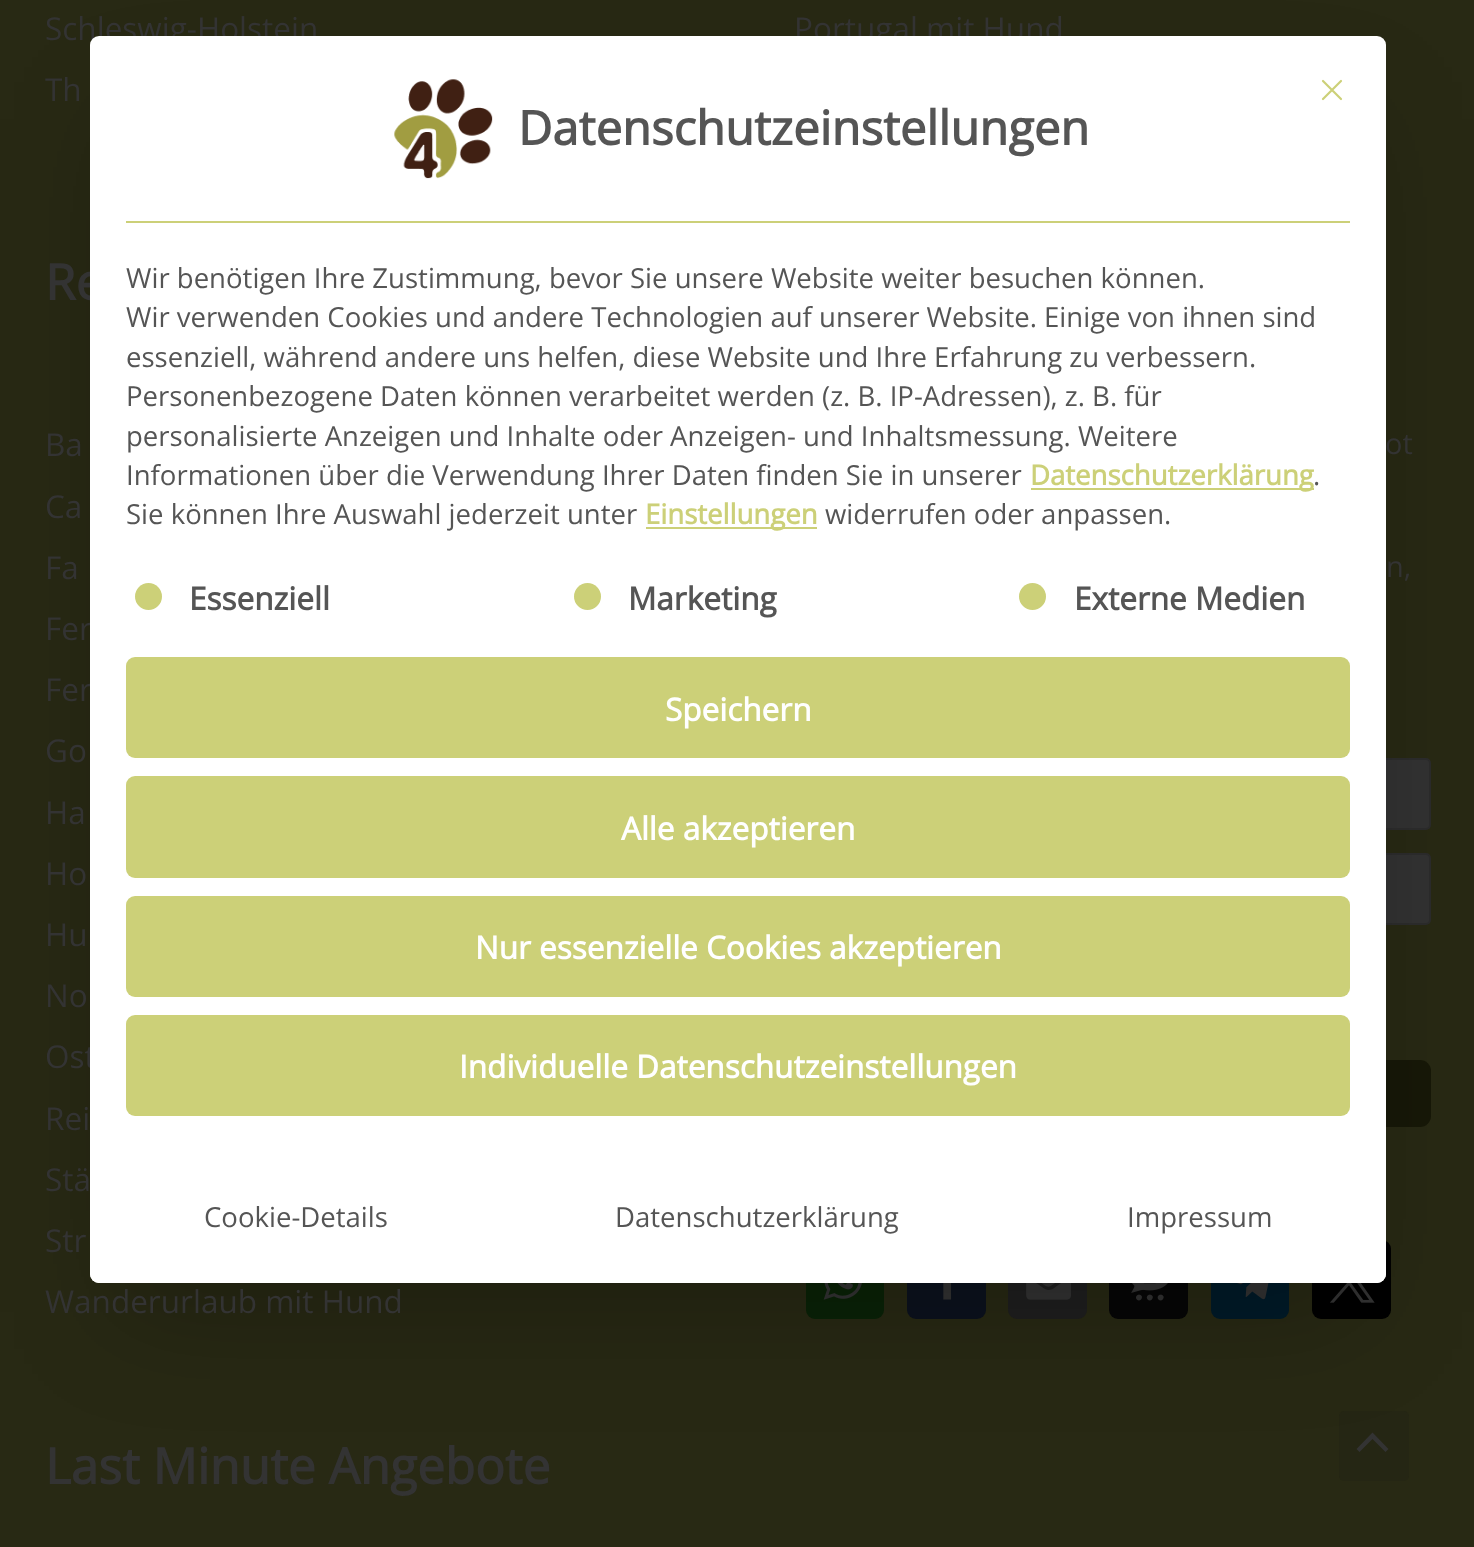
(async () => {
  const canvas = document.querySelector("canvas");
  canvas.width = 1474;
  canvas.height = 1547;
  const ctx = canvas.getContext("2d");
  ctx.miterLimit = 4;
  ctx.fontKerning = "normal";
  async function loadImage(src) {
    const img = new Image();
    img.src = src;
    await img.decode();
    return img;
  }
  let path;

  ctx.fillStyle = "#282914";
  ctx.fillRect(0, 0, 1474, 1547);
  ctx.fillStyle = "#323232";
  ctx.beginPath();
  ctx.roundRect(795, 759, 635, 70, 4);
  ctx.fill();
  ctx.strokeStyle = "#2c2c2c";
  ctx.lineWidth = 2;
  ctx.stroke();
  ctx.beginPath();
  ctx.roundRect(795, 854, 635, 70, 4);
  ctx.fill();
  ctx.stroke();
  ctx.fillStyle = "#171808";
  ctx.beginPath();
  ctx.roundRect(794, 1060, 637, 67, 11);
  ctx.fill();
  ctx.fillStyle = "#0a2307";
  ctx.beginPath();
  ctx.roundRect(806, 1240, 78, 79, 9);
  ctx.fill();
  ctx.drawImage(await loadImage("img/1.png"), 823, 1283, 39, 17);
  ctx.fillStyle = "#0c121e";
  ctx.beginPath();
  ctx.roundRect(907, 1240, 79, 79, 9);
  ctx.fill();
  ctx.drawImage(await loadImage("img/2.png"), 943, 1283, 9, 17);
  ctx.fillStyle = "#1f1f1f";
  ctx.beginPath();
  ctx.roundRect(1008, 1240, 79, 79, 9);
  ctx.fill();
  ctx.drawImage(await loadImage("img/3.png"), 1026, 1283, 45, 17);
  ctx.fillStyle = "#060606";
  ctx.beginPath();
  ctx.roundRect(1109, 1240, 79, 79, 9);
  ctx.fill();
  ctx.drawImage(await loadImage("img/4.png"), 1131, 1283, 37, 18);
  ctx.fillStyle = "#001b29";
  ctx.beginPath();
  ctx.roundRect(1211, 1240, 78, 79, 9);
  ctx.fill();
  ctx.drawImage(await loadImage("img/5.png"), 1237, 1283, 32, 17);
  ctx.fillStyle = "#000000";
  ctx.beginPath();
  ctx.roundRect(1312, 1240, 79, 79, 9);
  ctx.fill();
  ctx.drawImage(await loadImage("img/6.png"), 1329, 1283, 46, 20);
  ctx.fillStyle = "#252614";
  ctx.beginPath();
  ctx.roundRect(1339, 1411, 70, 70, 5);
  ctx.fill();
  ctx.fillStyle = "#333333";
  path = new Path2D("M1388.5 1449L1372.5 1432.5L1356.5 1449L1359.5 1452L1372.5 1439L1385.5 1452Z");
  ctx.fill(path);
  ctx.fillStyle = "rgba(0, 0, 0, 0.25)";
  ctx.filter = "blur(56px)";
  ctx.beginPath();
  ctx.rect(117, 119, 1242, 1193);
  ctx.fill();
  ctx.filter = "none";
  ctx.font = "31.5px Open Sans";
  ctx.fillStyle = "#333333";
  for (const [text, x, y] of [
    ["Schleswig-Holstein", 45, 40],
    ["Th", 45, 101],
    ["Portugal mit Hund", 794, 40],
  ]) {
    ctx.fillText(text, x, y);
  }
  ctx.font = "bold 49.5px Open Sans";
  ctx.fillText("Re", 45, 300);
  ctx.font = "31.5px Open Sans";
  for (const [text, x, y] of [
    ["Ba", 45, 456],
    ["Ca", 45, 518],
    ["Fa", 45, 579],
    ["Fer", 45, 640],
    ["Fer", 45, 701],
    ["Go", 45, 762],
    ["Ha", 45, 824],
    ["Ho", 45, 885],
    ["Hu", 45, 946],
    ["No", 45, 1007],
    ["Ost", 45, 1068],
    ["Rei", 45, 1130],
    ["Stä", 45, 1191],
    ["Str", 45, 1252],
    ["Wanderurlaub mit Hund", 45, 1313],
  ]) {
    ctx.fillText(text, x, y);
  }
  ctx.font = "bold 49.5px Open Sans";
  ctx.fillText("Last Minute Angebote", 45, 1484);
  ctx.font = "29px Open Sans";
  ctx.fillText("ot", 1385, 454);
  ctx.fillText("n,", 1386, 577);
  ctx.fillStyle = "#ffffff";
  ctx.beginPath();
  ctx.roundRect(90, 36, 1296, 1247, 9);
  ctx.fill();
  path = new Path2D("M1323 99L1341 81M1323 81L1341 99");
  ctx.strokeStyle = "#ccd078";
  ctx.lineWidth = 2.2;
  ctx.lineCap = "round";
  ctx.lineJoin = "round";
  ctx.stroke(path);
  ctx.fillStyle = "#ccd078";
  ctx.fillRect(126, 221, 1224, 2);
  ctx.drawImage(await loadImage("img/7.png"), 394, 79, 99, 100);
  ctx.font = "bold 47.25px Open Sans";
  ctx.fillStyle = "#555555";
  ctx.fillText("Datenschutzeinstellungen", 518, 145);
  ctx.font = "27.55px Open Sans";
  for (const [text, x, y] of [
    ["Wir benötigen Ihre Zustimmung, bevor Sie unsere Website weiter besuchen können.", 126, 288],
    ["Wir verwenden Cookies und andere Technologien auf unserer Website. Einige von ihnen sind", 126, 327],
    ["essenziell, während andere uns helfen, diese Website und Ihre Erfahrung zu verbessern.", 126, 367],
    ["Personenbezogene Daten können verarbeitet werden (z. B. IP-Adressen), z. B. für", 126, 406],
    ["personalisierte Anzeigen und Inhalte oder Anzeigen- und Inhaltsmessung. Weitere", 126, 446],
    ["Informationen über die Verwendung Ihrer Daten finden Sie in unserer", 126, 485],
    [".", 1313, 485],
  ]) {
    ctx.fillText(text, x, y);
  }
  ctx.fillStyle = "#ccd078";
  ctx.fillRect(1031, 488, 283, 2);
  ctx.font = "bold 27.55px Open Sans";
  ctx.fillText("Datenschutzerklärung", 1030, 485);
  ctx.font = "27.55px Open Sans";
  ctx.fillStyle = "#555555";
  ctx.fillText("Sie können Ihre Auswahl jederzeit unter", 126, 524);
  ctx.fillStyle = "#ccd078";
  ctx.fillRect(646, 527, 171, 2);
  ctx.font = "bold 27.55px Open Sans";
  ctx.fillText("Einstellungen", 645, 524);
  ctx.font = "27.55px Open Sans";
  ctx.fillStyle = "#555555";
  ctx.fillText("widerrufen oder anpassen.", 825, 524);
  ctx.fillStyle = "#ccd078";
  ctx.beginPath();
  ctx.arc(148.5, 596.5, 13.5, 0, Math.PI * 2);
  ctx.fill();
  ctx.font = "bold 31.5px Open Sans";
  ctx.fillStyle = "#555555";
  ctx.fillText("Essenziell", 189, 610);
  ctx.fillStyle = "#ccd078";
  ctx.beginPath();
  ctx.arc(587.5, 596.5, 13.5, 0, Math.PI * 2);
  ctx.fill();
  ctx.fillStyle = "#555555";
  ctx.fillText("Marketing", 628, 610);
  ctx.fillStyle = "#ccd078";
  ctx.beginPath();
  ctx.arc(1032.5, 596.5, 13.5, 0, Math.PI * 2);
  ctx.fill();
  ctx.fillStyle = "#555555";
  ctx.fillText("Externe Medien", 1074, 610);
  ctx.fillStyle = "#ccd078";
  ctx.beginPath();
  ctx.roundRect(126, 657, 1224, 101, 9);
  ctx.fill();
  ctx.fillStyle = "#ffffff";
  ctx.fillText("Speichern", 665, 721);
  ctx.fillStyle = "#ccd078";
  ctx.beginPath();
  ctx.roundRect(126, 776, 1224, 102, 9);
  ctx.fill();
  ctx.fillStyle = "#ffffff";
  ctx.fillText("Alle akzeptieren", 621, 840);
  ctx.fillStyle = "#ccd078";
  ctx.beginPath();
  ctx.roundRect(126, 896, 1224, 101, 9);
  ctx.fill();
  ctx.fillStyle = "#ffffff";
  ctx.fillText("Nur essenzielle Cookies akzeptieren", 475, 959);
  ctx.fillStyle = "#ccd078";
  ctx.beginPath();
  ctx.roundRect(126, 1015, 1224, 101, 9);
  ctx.fill();
  ctx.fillStyle = "#ffffff";
  ctx.fillText("Individuelle Datenschutzeinstellungen", 459, 1078);
  ctx.beginPath();
  ctx.roundRect(90, 1152, 1296, 131, [0, 0, 9, 9]);
  ctx.fill();
  ctx.font = "27.55px Open Sans";
  ctx.fillStyle = "#555555";
  for (const [text, x, y] of [
    ["Cookie-Details", 204, 1227],
    ["Datenschutzerklärung", 615, 1227],
    ["Impressum", 1127, 1227],
  ]) {
    ctx.fillText(text, x, y);
  }
})();
